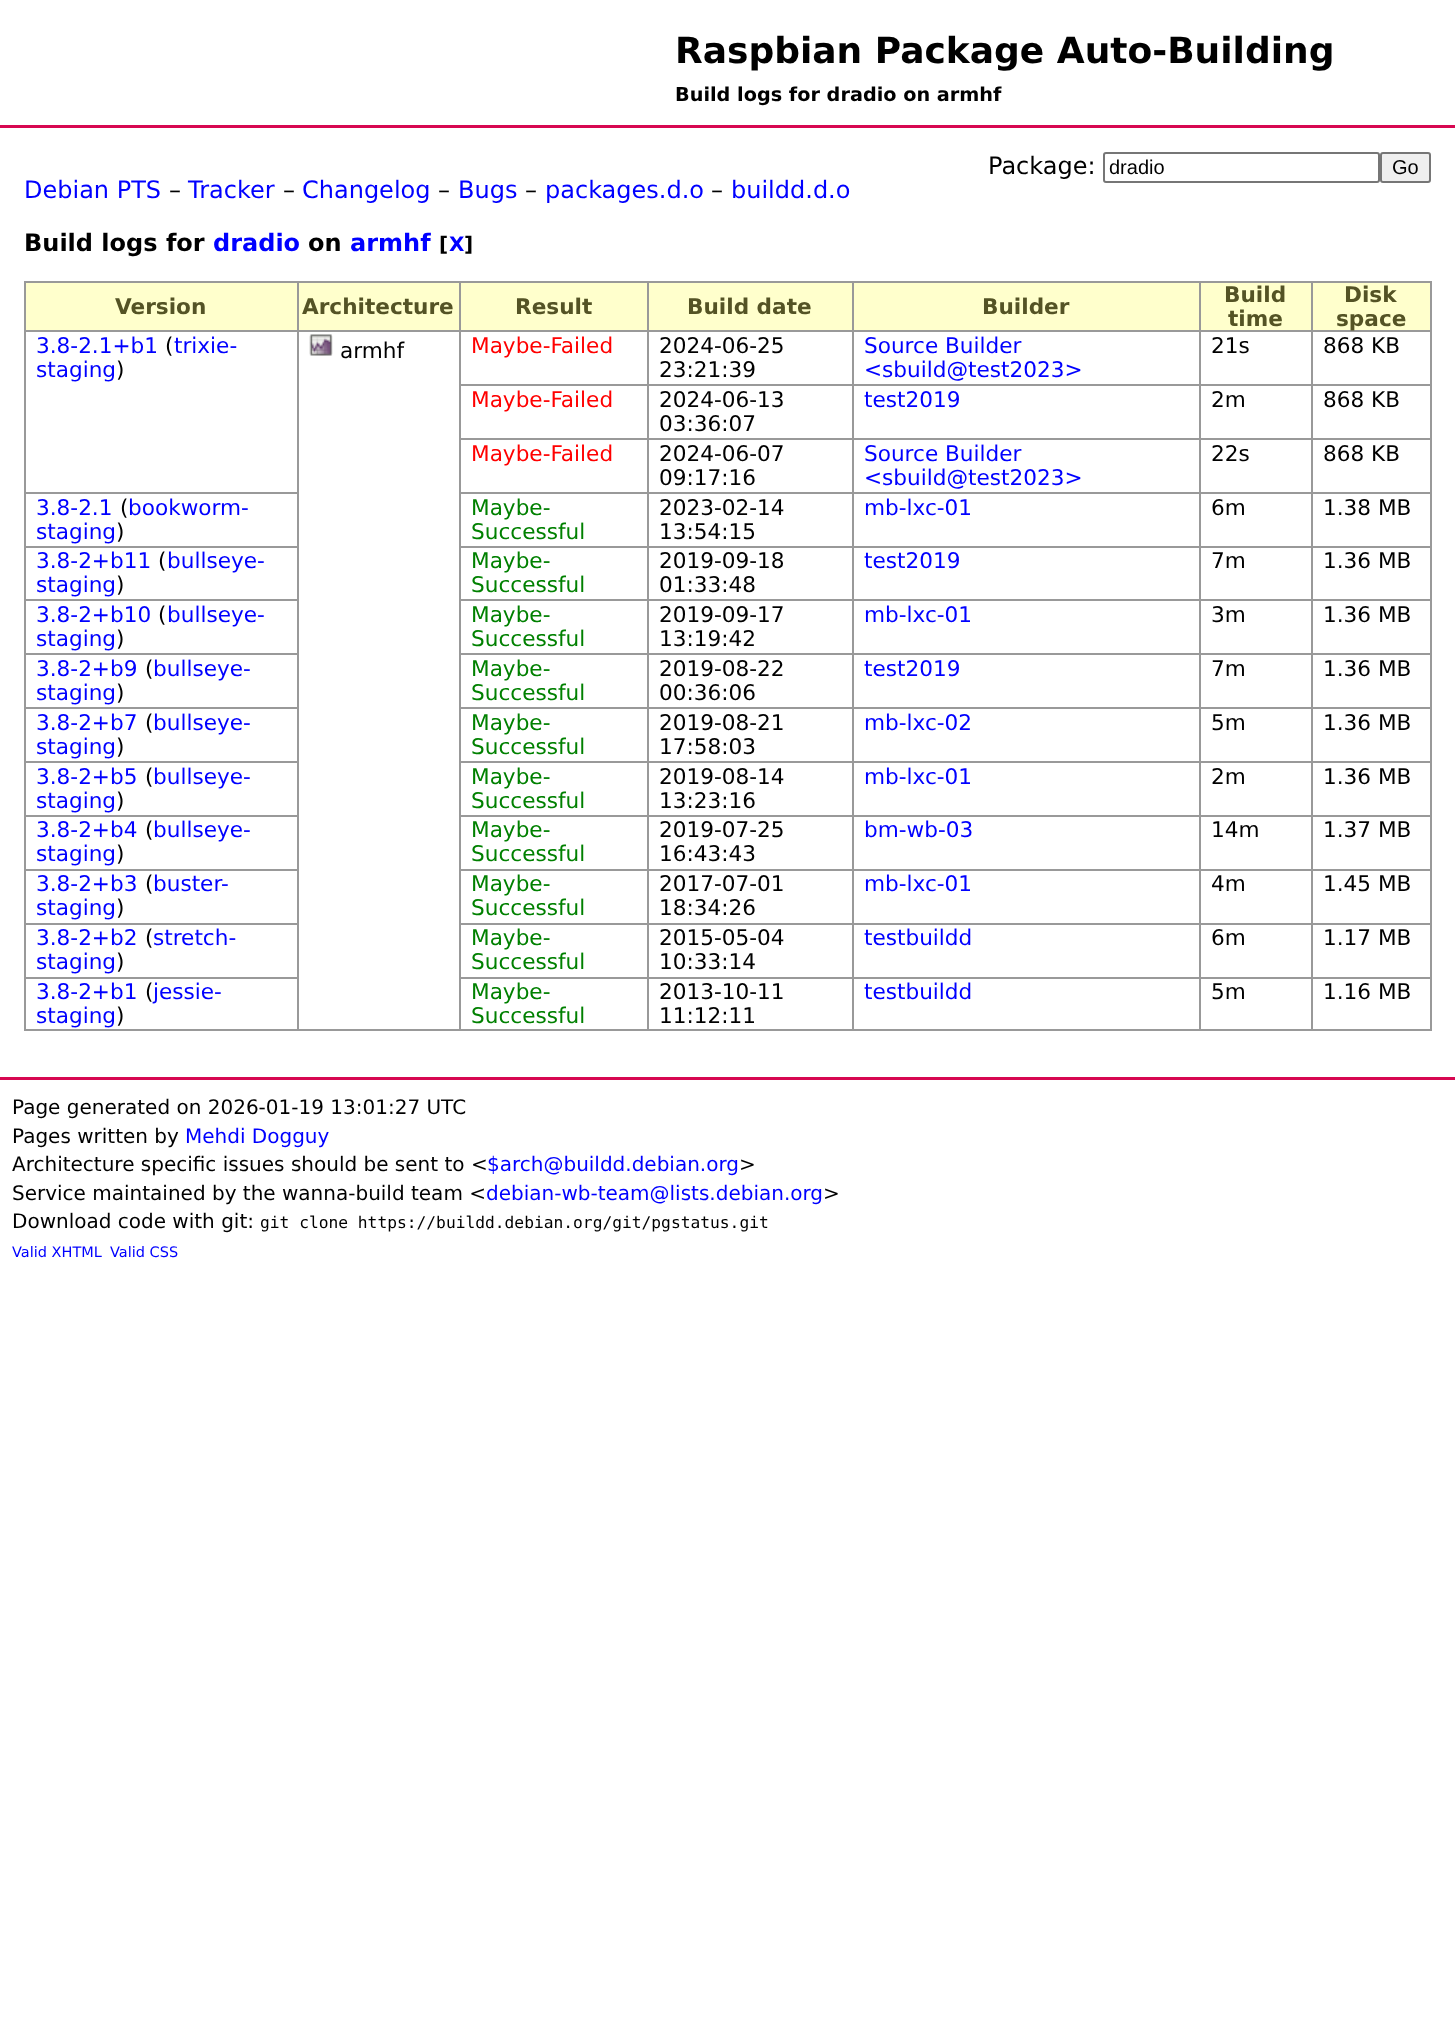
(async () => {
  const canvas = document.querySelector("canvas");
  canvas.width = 1455;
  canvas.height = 2024;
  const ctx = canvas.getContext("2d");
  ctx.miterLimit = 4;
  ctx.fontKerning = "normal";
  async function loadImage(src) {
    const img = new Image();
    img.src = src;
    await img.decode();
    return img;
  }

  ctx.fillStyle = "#ffffff";
  ctx.fillRect(0, 0, 1455, 2024);
  ctx.fillStyle = "#d70751";
  ctx.fillRect(0, 125, 1455, 3);
  ctx.beginPath();
  ctx.roundRect(1104, 153, 275, 29, 2);
  ctx.strokeStyle = "#767676";
  ctx.lineWidth = 2;
  ctx.stroke();
  ctx.fillStyle = "#efefef";
  ctx.beginPath();
  ctx.roundRect(1381, 153, 49, 29, 2);
  ctx.fill();
  ctx.stroke();
  for (const [x, y, w, h, color] of [
    [24, 281, 1407, 2, "#999999"],
    [1430, 281, 2, 750, "#999999"],
    [24, 1029, 1407, 2, "#999999"],
    [24, 281, 2, 750, "#999999"],
    [26, 283, 271, 47, "#ffffcc"],
    [299, 283, 160, 47, "#ffffcc"],
    [1311, 330, 120, 2, "#999999"],
    [1311, 384, 120, 2, "#999999"],
    [1311, 438, 120, 2, "#999999"],
    [1311, 492, 120, 2, "#999999"],
    [1311, 546, 120, 2, "#999999"],
    [1311, 599, 120, 2, "#999999"],
    [1311, 653, 120, 2, "#999999"],
    [1311, 707, 120, 2, "#999999"],
    [1311, 761, 120, 2, "#999999"],
    [1311, 815, 120, 2, "#999999"],
    [1311, 869, 120, 2, "#999999"],
    [1311, 923, 120, 2, "#999999"],
    [1311, 977, 120, 2, "#999999"],
    [1311, 977, 2, 54, "#999999"],
    [1199, 977, 114, 2, "#999999"],
    [1311, 923, 2, 55, "#999999"],
    [1199, 923, 114, 2, "#999999"],
    [1311, 869, 2, 55, "#999999"],
    [1199, 869, 114, 2, "#999999"],
    [1311, 815, 2, 55, "#999999"],
    [1199, 815, 114, 2, "#999999"],
    [1311, 761, 2, 55, "#999999"],
    [1199, 761, 114, 2, "#999999"],
    [1311, 707, 2, 55, "#999999"],
    [1199, 707, 114, 2, "#999999"],
    [1311, 653, 2, 55, "#999999"],
    [1199, 653, 114, 2, "#999999"],
    [1311, 599, 2, 55, "#999999"],
    [1199, 599, 114, 2, "#999999"],
    [1311, 546, 2, 54, "#999999"],
    [1199, 546, 114, 2, "#999999"],
    [1311, 492, 2, 56, "#999999"],
    [1199, 492, 114, 2, "#999999"],
    [1311, 438, 2, 56, "#999999"],
    [1199, 438, 114, 2, "#999999"],
    [1311, 384, 2, 56, "#999999"],
    [1199, 384, 114, 2, "#999999"],
    [1311, 330, 2, 56, "#999999"],
    [1199, 330, 114, 2, "#999999"],
    [1199, 977, 2, 54, "#999999"],
    [852, 977, 348, 2, "#999999"],
    [1199, 923, 2, 55, "#999999"],
    [852, 923, 348, 2, "#999999"],
    [1199, 869, 2, 55, "#999999"],
    [852, 869, 348, 2, "#999999"],
    [1199, 815, 2, 55, "#999999"],
    [852, 815, 348, 2, "#999999"],
    [1199, 761, 2, 55, "#999999"],
    [852, 761, 348, 2, "#999999"],
    [1199, 707, 2, 55, "#999999"],
    [852, 707, 348, 2, "#999999"],
    [1199, 653, 2, 55, "#999999"],
    [852, 653, 348, 2, "#999999"],
    [1199, 599, 2, 55, "#999999"],
    [852, 599, 348, 2, "#999999"],
    [1199, 546, 2, 54, "#999999"],
    [852, 546, 348, 2, "#999999"],
    [1199, 492, 2, 56, "#999999"],
    [852, 492, 348, 2, "#999999"],
    [1199, 438, 2, 56, "#999999"],
    [852, 438, 348, 2, "#999999"],
    [1199, 384, 2, 56, "#999999"],
    [852, 384, 348, 2, "#999999"],
    [1199, 330, 2, 56, "#999999"],
    [852, 330, 348, 2, "#999999"],
    [852, 977, 2, 54, "#999999"],
    [647, 977, 207, 2, "#999999"],
    [852, 923, 2, 55, "#999999"],
    [647, 923, 207, 2, "#999999"],
    [852, 869, 2, 55, "#999999"],
    [647, 869, 207, 2, "#999999"],
    [852, 815, 2, 55, "#999999"],
    [647, 815, 207, 2, "#999999"],
    [852, 761, 2, 55, "#999999"],
    [647, 761, 207, 2, "#999999"],
    [852, 707, 2, 55, "#999999"],
    [647, 707, 207, 2, "#999999"],
    [852, 653, 2, 55, "#999999"],
    [647, 653, 207, 2, "#999999"],
    [852, 599, 2, 55, "#999999"],
    [647, 599, 207, 2, "#999999"],
    [852, 546, 2, 54, "#999999"],
    [647, 546, 207, 2, "#999999"],
    [852, 492, 2, 56, "#999999"],
    [647, 492, 207, 2, "#999999"],
    [852, 438, 2, 56, "#999999"],
    [647, 438, 207, 2, "#999999"],
    [852, 384, 2, 56, "#999999"],
    [647, 384, 207, 2, "#999999"],
    [852, 330, 2, 56, "#999999"],
    [647, 330, 207, 2, "#999999"],
    [647, 977, 2, 54, "#999999"],
    [459, 977, 189, 2, "#999999"],
    [647, 923, 2, 55, "#999999"],
    [459, 923, 189, 2, "#999999"],
    [647, 869, 2, 55, "#999999"],
    [459, 869, 189, 2, "#999999"],
    [647, 815, 2, 55, "#999999"],
    [459, 815, 189, 2, "#999999"],
    [647, 761, 2, 55, "#999999"],
    [459, 761, 189, 2, "#999999"],
    [647, 707, 2, 55, "#999999"],
    [459, 707, 189, 2, "#999999"],
    [647, 653, 2, 55, "#999999"],
    [459, 653, 189, 2, "#999999"],
    [647, 599, 2, 55, "#999999"],
    [459, 599, 189, 2, "#999999"],
    [647, 546, 2, 54, "#999999"],
    [459, 546, 189, 2, "#999999"],
    [647, 492, 2, 56, "#999999"],
    [459, 492, 189, 2, "#999999"],
    [647, 438, 2, 56, "#999999"],
    [459, 438, 189, 2, "#999999"],
    [647, 384, 2, 56, "#999999"],
    [459, 384, 189, 2, "#999999"],
    [647, 330, 2, 56, "#999999"],
    [459, 330, 189, 2, "#999999"],
    [459, 977, 2, 54, "#999999"],
    [459, 923, 2, 55, "#999999"],
    [459, 869, 2, 55, "#999999"],
    [459, 815, 2, 55, "#999999"],
    [459, 761, 2, 55, "#999999"],
    [459, 707, 2, 55, "#999999"],
    [459, 653, 2, 55, "#999999"],
    [459, 599, 2, 55, "#999999"],
    [459, 546, 2, 54, "#999999"],
    [459, 492, 2, 56, "#999999"],
    [459, 438, 2, 56, "#999999"],
    [459, 384, 2, 56, "#999999"],
    [459, 330, 2, 56, "#999999"],
    [297, 330, 164, 2, "#999999"],
    [297, 977, 2, 54, "#999999"],
    [24, 977, 275, 2, "#999999"],
    [297, 923, 2, 55, "#999999"],
    [24, 923, 275, 2, "#999999"],
    [297, 869, 2, 55, "#999999"],
    [24, 869, 275, 2, "#999999"],
    [297, 815, 2, 55, "#999999"],
    [24, 815, 275, 2, "#999999"],
    [297, 761, 2, 55, "#999999"],
    [24, 761, 275, 2, "#999999"],
    [297, 707, 2, 55, "#999999"],
    [24, 707, 275, 2, "#999999"],
    [297, 653, 2, 55, "#999999"],
    [24, 653, 275, 2, "#999999"],
    [297, 599, 2, 55, "#999999"],
    [24, 599, 275, 2, "#999999"],
    [297, 546, 2, 54, "#999999"],
    [24, 546, 275, 2, "#999999"],
    [297, 492, 2, 56, "#999999"],
    [24, 492, 275, 2, "#999999"],
    [297, 384, 2, 110, "#999999"],
    [297, 330, 2, 56, "#999999"],
    [24, 330, 275, 2, "#999999"],
    [297, 281, 2, 51, "#999999"],
    [461, 283, 186, 47, "#ffffcc"],
    [459, 281, 2, 51, "#999999"],
    [649, 283, 203, 47, "#ffffcc"],
    [647, 281, 2, 51, "#999999"],
    [854, 283, 345, 47, "#ffffcc"],
    [852, 281, 2, 51, "#999999"],
    [1201, 283, 110, 47, "#ffffcc"],
    [1199, 281, 2, 51, "#999999"],
    [1313, 283, 117, 47, "#ffffcc"],
    [1311, 281, 2, 51, "#999999"],
  ]) {
    ctx.fillStyle = color;
    ctx.fillRect(x, y, w, h);
  }
  ctx.drawImage(await loadImage("img/1.png"), 309, 334, 24, 22);
  ctx.fillStyle = "#d70751";
  ctx.fillRect(0, 1077, 1455, 3);
  ctx.font = "bold 36px DejaVu Sans";
  ctx.fillStyle = "#000000";
  ctx.fillText("Raspbian Package Auto-Building", 675, 63);
  ctx.font = "bold 19.25px DejaVu Sans";
  ctx.fillText("Build logs for dradio on armhf", 675, 101);
  ctx.font = "24px DejaVu Sans";
  ctx.fillText("Package:", 988, 174);
  ctx.font = "20px Liberation Sans";
  ctx.fillText("dradio", 1109, 174);
  ctx.fillText("Go", 1392, 174);
  ctx.font = "24px DejaVu Sans";
  ctx.fillStyle = "#0000ff";
  ctx.fillText("Debian PTS", 24, 198);
  ctx.fillStyle = "#000000";
  ctx.fillText("–", 169, 198);
  ctx.fillStyle = "#0000ff";
  ctx.fillText("Tracker", 188, 198);
  ctx.fillStyle = "#000000";
  ctx.fillText("–", 283, 198);
  ctx.fillStyle = "#0000ff";
  ctx.fillText("Changelog", 302, 198);
  ctx.fillStyle = "#000000";
  ctx.fillText("–", 438, 198);
  ctx.fillStyle = "#0000ff";
  ctx.fillText("Bugs", 458, 198);
  ctx.fillStyle = "#000000";
  ctx.fillText("–", 525, 198);
  ctx.fillStyle = "#0000ff";
  ctx.fillText("packages.d.o", 545, 198);
  ctx.fillStyle = "#000000";
  ctx.fillText("–", 711, 198);
  ctx.fillStyle = "#0000ff";
  ctx.fillText("buildd.d.o", 731, 198);
  ctx.font = "bold 24px DejaVu Sans";
  ctx.fillStyle = "#000000";
  ctx.fillText("Build logs for", 24, 251);
  ctx.fillStyle = "#0000ff";
  ctx.fillText("dradio", 213, 251);
  ctx.fillStyle = "#000000";
  ctx.fillText("on", 308, 251);
  ctx.fillStyle = "#0000ff";
  ctx.fillText("armhf", 350, 251);
  ctx.font = "bold 20px DejaVu Sans";
  ctx.fillStyle = "#000000";
  ctx.fillText("[", 439, 251);
  ctx.fillStyle = "#0000ff";
  ctx.fillText("X", 449, 251);
  ctx.fillStyle = "#000000";
  ctx.fillText("]", 464, 251);
  ctx.font = "bold 21.6px DejaVu Sans";
  ctx.fillStyle = "#545325";
  for (const [text, x, y] of [
    ["Version", 115, 314],
    ["Architecture", 302, 314],
    ["Result", 515, 314],
    ["Build date", 687, 314],
    ["Builder", 982, 314],
    ["Build", 1224, 302],
    ["time", 1228, 326],
    ["Disk", 1344, 302],
    ["space", 1336, 326],
  ]) {
    ctx.fillText(text, x, y);
  }
  ctx.font = "21.6px DejaVu Sans";
  ctx.fillStyle = "#0000ff";
  ctx.fillText("3.8-2.1+b1", 36, 353);
  ctx.fillStyle = "#000000";
  ctx.fillText("(", 165, 353);
  ctx.fillStyle = "#0000ff";
  ctx.fillText("trixie-", 174, 353);
  ctx.fillText("staging", 36, 377);
  ctx.fillStyle = "#000000";
  ctx.fillText(")", 116, 377);
  ctx.fillText("armhf", 340, 358);
  ctx.fillStyle = "#ff0000";
  ctx.fillText("Maybe-Failed", 471, 353);
  ctx.fillStyle = "#000000";
  ctx.fillText("2024-06-25", 659, 353);
  ctx.fillText("23:21:39", 659, 377);
  ctx.fillStyle = "#0000ff";
  ctx.fillText("Source Builder", 864, 353);
  ctx.fillText("<sbuild@test2023>", 864, 377);
  ctx.fillStyle = "#000000";
  ctx.fillText("21s", 1211, 353);
  ctx.fillText("868 KB", 1323, 353);
  ctx.fillStyle = "#ff0000";
  ctx.fillText("Maybe-Failed", 471, 407);
  ctx.fillStyle = "#000000";
  ctx.fillText("2024-06-13", 659, 407);
  ctx.fillText("03:36:07", 659, 431);
  ctx.fillStyle = "#0000ff";
  ctx.fillText("test2019", 864, 407);
  ctx.fillStyle = "#000000";
  ctx.fillText("2m", 1211, 407);
  ctx.fillText("868 KB", 1323, 407);
  ctx.fillStyle = "#ff0000";
  ctx.fillText("Maybe-Failed", 471, 461);
  ctx.fillStyle = "#000000";
  ctx.fillText("2024-06-07", 659, 461);
  ctx.fillText("09:17:16", 659, 485);
  ctx.fillStyle = "#0000ff";
  ctx.fillText("Source Builder", 864, 461);
  ctx.fillText("<sbuild@test2023>", 864, 485);
  ctx.fillStyle = "#000000";
  ctx.fillText("22s", 1211, 461);
  ctx.fillText("868 KB", 1323, 461);
  ctx.fillStyle = "#0000ff";
  ctx.fillText("3.8-2.1", 36, 515);
  ctx.fillStyle = "#000000";
  ctx.fillText("(", 120, 515);
  ctx.fillStyle = "#0000ff";
  ctx.fillText("bookworm-", 128, 515);
  ctx.fillText("staging", 36, 539);
  ctx.fillStyle = "#000000";
  ctx.fillText(")", 116, 539);
  ctx.fillStyle = "#008000";
  ctx.fillText("Maybe-", 471, 515);
  ctx.fillText("Successful", 471, 539);
  ctx.fillStyle = "#000000";
  ctx.fillText("2023-02-14", 659, 515);
  ctx.fillText("13:54:15", 659, 539);
  ctx.fillStyle = "#0000ff";
  ctx.fillText("mb-lxc-01", 864, 515);
  ctx.fillStyle = "#000000";
  ctx.fillText("6m", 1211, 515);
  ctx.fillText("1.38 MB", 1323, 515);
  ctx.fillStyle = "#0000ff";
  ctx.fillText("3.8-2+b11", 36, 568);
  ctx.fillStyle = "#000000";
  ctx.fillText("(", 158, 568);
  ctx.fillStyle = "#0000ff";
  ctx.fillText("bullseye-", 167, 568);
  ctx.fillText("staging", 36, 592);
  ctx.fillStyle = "#000000";
  ctx.fillText(")", 116, 592);
  ctx.fillStyle = "#008000";
  ctx.fillText("Maybe-", 471, 568);
  ctx.fillText("Successful", 471, 592);
  ctx.fillStyle = "#000000";
  ctx.fillText("2019-09-18", 659, 568);
  ctx.fillText("01:33:48", 659, 592);
  ctx.fillStyle = "#0000ff";
  ctx.fillText("test2019", 864, 568);
  ctx.fillStyle = "#000000";
  ctx.fillText("7m", 1211, 568);
  ctx.fillText("1.36 MB", 1323, 568);
  ctx.fillStyle = "#0000ff";
  ctx.fillText("3.8-2+b10", 36, 622);
  ctx.fillStyle = "#000000";
  ctx.fillText("(", 158, 622);
  ctx.fillStyle = "#0000ff";
  ctx.fillText("bullseye-", 167, 622);
  ctx.fillText("staging", 36, 646);
  ctx.fillStyle = "#000000";
  ctx.fillText(")", 116, 646);
  ctx.fillStyle = "#008000";
  ctx.fillText("Maybe-", 471, 622);
  ctx.fillText("Successful", 471, 646);
  ctx.fillStyle = "#000000";
  ctx.fillText("2019-09-17", 659, 622);
  ctx.fillText("13:19:42", 659, 646);
  ctx.fillStyle = "#0000ff";
  ctx.fillText("mb-lxc-01", 864, 622);
  ctx.fillStyle = "#000000";
  ctx.fillText("3m", 1211, 622);
  ctx.fillText("1.36 MB", 1323, 622);
  ctx.fillStyle = "#0000ff";
  ctx.fillText("3.8-2+b9", 36, 676);
  ctx.fillStyle = "#000000";
  ctx.fillText("(", 145, 676);
  ctx.fillStyle = "#0000ff";
  ctx.fillText("bullseye-", 153, 676);
  ctx.fillText("staging", 36, 700);
  ctx.fillStyle = "#000000";
  ctx.fillText(")", 116, 700);
  ctx.fillStyle = "#008000";
  ctx.fillText("Maybe-", 471, 676);
  ctx.fillText("Successful", 471, 700);
  ctx.fillStyle = "#000000";
  ctx.fillText("2019-08-22", 659, 676);
  ctx.fillText("00:36:06", 659, 700);
  ctx.fillStyle = "#0000ff";
  ctx.fillText("test2019", 864, 676);
  ctx.fillStyle = "#000000";
  ctx.fillText("7m", 1211, 676);
  ctx.fillText("1.36 MB", 1323, 676);
  ctx.fillStyle = "#0000ff";
  ctx.fillText("3.8-2+b7", 36, 730);
  ctx.fillStyle = "#000000";
  ctx.fillText("(", 145, 730);
  ctx.fillStyle = "#0000ff";
  ctx.fillText("bullseye-", 153, 730);
  ctx.fillText("staging", 36, 754);
  ctx.fillStyle = "#000000";
  ctx.fillText(")", 116, 754);
  ctx.fillStyle = "#008000";
  ctx.fillText("Maybe-", 471, 730);
  ctx.fillText("Successful", 471, 754);
  ctx.fillStyle = "#000000";
  ctx.fillText("2019-08-21", 659, 730);
  ctx.fillText("17:58:03", 659, 754);
  ctx.fillStyle = "#0000ff";
  ctx.fillText("mb-lxc-02", 864, 730);
  ctx.fillStyle = "#000000";
  ctx.fillText("5m", 1211, 730);
  ctx.fillText("1.36 MB", 1323, 730);
  ctx.fillStyle = "#0000ff";
  ctx.fillText("3.8-2+b5", 36, 784);
  ctx.fillStyle = "#000000";
  ctx.fillText("(", 145, 784);
  ctx.fillStyle = "#0000ff";
  ctx.fillText("bullseye-", 153, 784);
  ctx.fillText("staging", 36, 808);
  ctx.fillStyle = "#000000";
  ctx.fillText(")", 116, 808);
  ctx.fillStyle = "#008000";
  ctx.fillText("Maybe-", 471, 784);
  ctx.fillText("Successful", 471, 808);
  ctx.fillStyle = "#000000";
  ctx.fillText("2019-08-14", 659, 784);
  ctx.fillText("13:23:16", 659, 808);
  ctx.fillStyle = "#0000ff";
  ctx.fillText("mb-lxc-01", 864, 784);
  ctx.fillStyle = "#000000";
  ctx.fillText("2m", 1211, 784);
  ctx.fillText("1.36 MB", 1323, 784);
  ctx.fillStyle = "#0000ff";
  ctx.fillText("3.8-2+b4", 36, 837);
  ctx.fillStyle = "#000000";
  ctx.fillText("(", 145, 837);
  ctx.fillStyle = "#0000ff";
  ctx.fillText("bullseye-", 153, 837);
  ctx.fillText("staging", 36, 861);
  ctx.fillStyle = "#000000";
  ctx.fillText(")", 116, 861);
  ctx.fillStyle = "#008000";
  ctx.fillText("Maybe-", 471, 837);
  ctx.fillText("Successful", 471, 861);
  ctx.fillStyle = "#000000";
  ctx.fillText("2019-07-25", 659, 837);
  ctx.fillText("16:43:43", 659, 861);
  ctx.fillStyle = "#0000ff";
  ctx.fillText("bm-wb-03", 864, 837);
  ctx.fillStyle = "#000000";
  ctx.fillText("14m", 1211, 837);
  ctx.fillText("1.37 MB", 1323, 837);
  ctx.fillStyle = "#0000ff";
  ctx.fillText("3.8-2+b3", 36, 891);
  ctx.fillStyle = "#000000";
  ctx.fillText("(", 145, 891);
  ctx.fillStyle = "#0000ff";
  ctx.fillText("buster-", 153, 891);
  ctx.fillText("staging", 36, 915);
  ctx.fillStyle = "#000000";
  ctx.fillText(")", 116, 915);
  ctx.fillStyle = "#008000";
  ctx.fillText("Maybe-", 471, 891);
  ctx.fillText("Successful", 471, 915);
  ctx.fillStyle = "#000000";
  ctx.fillText("2017-07-01", 659, 891);
  ctx.fillText("18:34:26", 659, 915);
  ctx.fillStyle = "#0000ff";
  ctx.fillText("mb-lxc-01", 864, 891);
  ctx.fillStyle = "#000000";
  ctx.fillText("4m", 1211, 891);
  ctx.fillText("1.45 MB", 1323, 891);
  ctx.fillStyle = "#0000ff";
  ctx.fillText("3.8-2+b2", 36, 945);
  ctx.fillStyle = "#000000";
  ctx.fillText("(", 145, 945);
  ctx.fillStyle = "#0000ff";
  ctx.fillText("stretch-", 153, 945);
  ctx.fillText("staging", 36, 969);
  ctx.fillStyle = "#000000";
  ctx.fillText(")", 116, 969);
  ctx.fillStyle = "#008000";
  ctx.fillText("Maybe-", 471, 945);
  ctx.fillText("Successful", 471, 969);
  ctx.fillStyle = "#000000";
  ctx.fillText("2015-05-04", 659, 945);
  ctx.fillText("10:33:14", 659, 969);
  ctx.fillStyle = "#0000ff";
  ctx.fillText("testbuildd", 864, 945);
  ctx.fillStyle = "#000000";
  ctx.fillText("6m", 1211, 945);
  ctx.fillText("1.17 MB", 1323, 945);
  ctx.fillStyle = "#0000ff";
  ctx.fillText("3.8-2+b1", 36, 999);
  ctx.fillStyle = "#000000";
  ctx.fillText("(", 145, 999);
  ctx.fillStyle = "#0000ff";
  ctx.fillText("jessie-", 153, 999);
  ctx.fillText("staging", 36, 1023);
  ctx.fillStyle = "#000000";
  ctx.fillText(")", 116, 1023);
  ctx.fillStyle = "#008000";
  ctx.fillText("Maybe-", 471, 999);
  ctx.fillText("Successful", 471, 1023);
  ctx.fillStyle = "#000000";
  ctx.fillText("2013-10-11", 659, 999);
  ctx.fillText("11:12:11", 659, 1023);
  ctx.fillStyle = "#0000ff";
  ctx.fillText("testbuildd", 864, 999);
  ctx.fillStyle = "#000000";
  ctx.fillText("5m", 1211, 999);
  ctx.fillText("1.16 MB", 1323, 999);
  ctx.font = "20px DejaVu Sans";
  ctx.fillText("Page generated on 2026-01-19 13:01:27 UTC", 12, 1114);
  ctx.fillText("Pages written by", 12, 1143);
  ctx.fillStyle = "#0000ff";
  ctx.fillText("Mehdi Dogguy", 185, 1143);
  ctx.fillStyle = "#000000";
  ctx.fillText("Architecture specific issues should be sent to <", 12, 1171);
  ctx.fillStyle = "#0000ff";
  ctx.fillText("$arch@buildd.debian.org", 487, 1171);
  ctx.fillStyle = "#000000";
  ctx.fillText(">", 739, 1171);
  ctx.fillText("Service maintained by the wanna-build team <", 12, 1200);
  ctx.fillStyle = "#0000ff";
  ctx.fillText("debian-wb-team@lists.debian.org", 486, 1200);
  ctx.fillStyle = "#000000";
  ctx.fillText(">", 823, 1200);
  ctx.fillText("Download code with git:", 12, 1228);
  ctx.font = "16.25px DejaVu Sans Mono";
  ctx.fillText("git clone https://buildd.debian.org/git/pgstatus.git", 260, 1228);
  ctx.font = "14.5px DejaVu Sans";
  ctx.fillStyle = "#0000ff";
  ctx.fillText("Valid XHTML", 12, 1257);
  ctx.fillText("Valid CSS", 110, 1257);
})();
